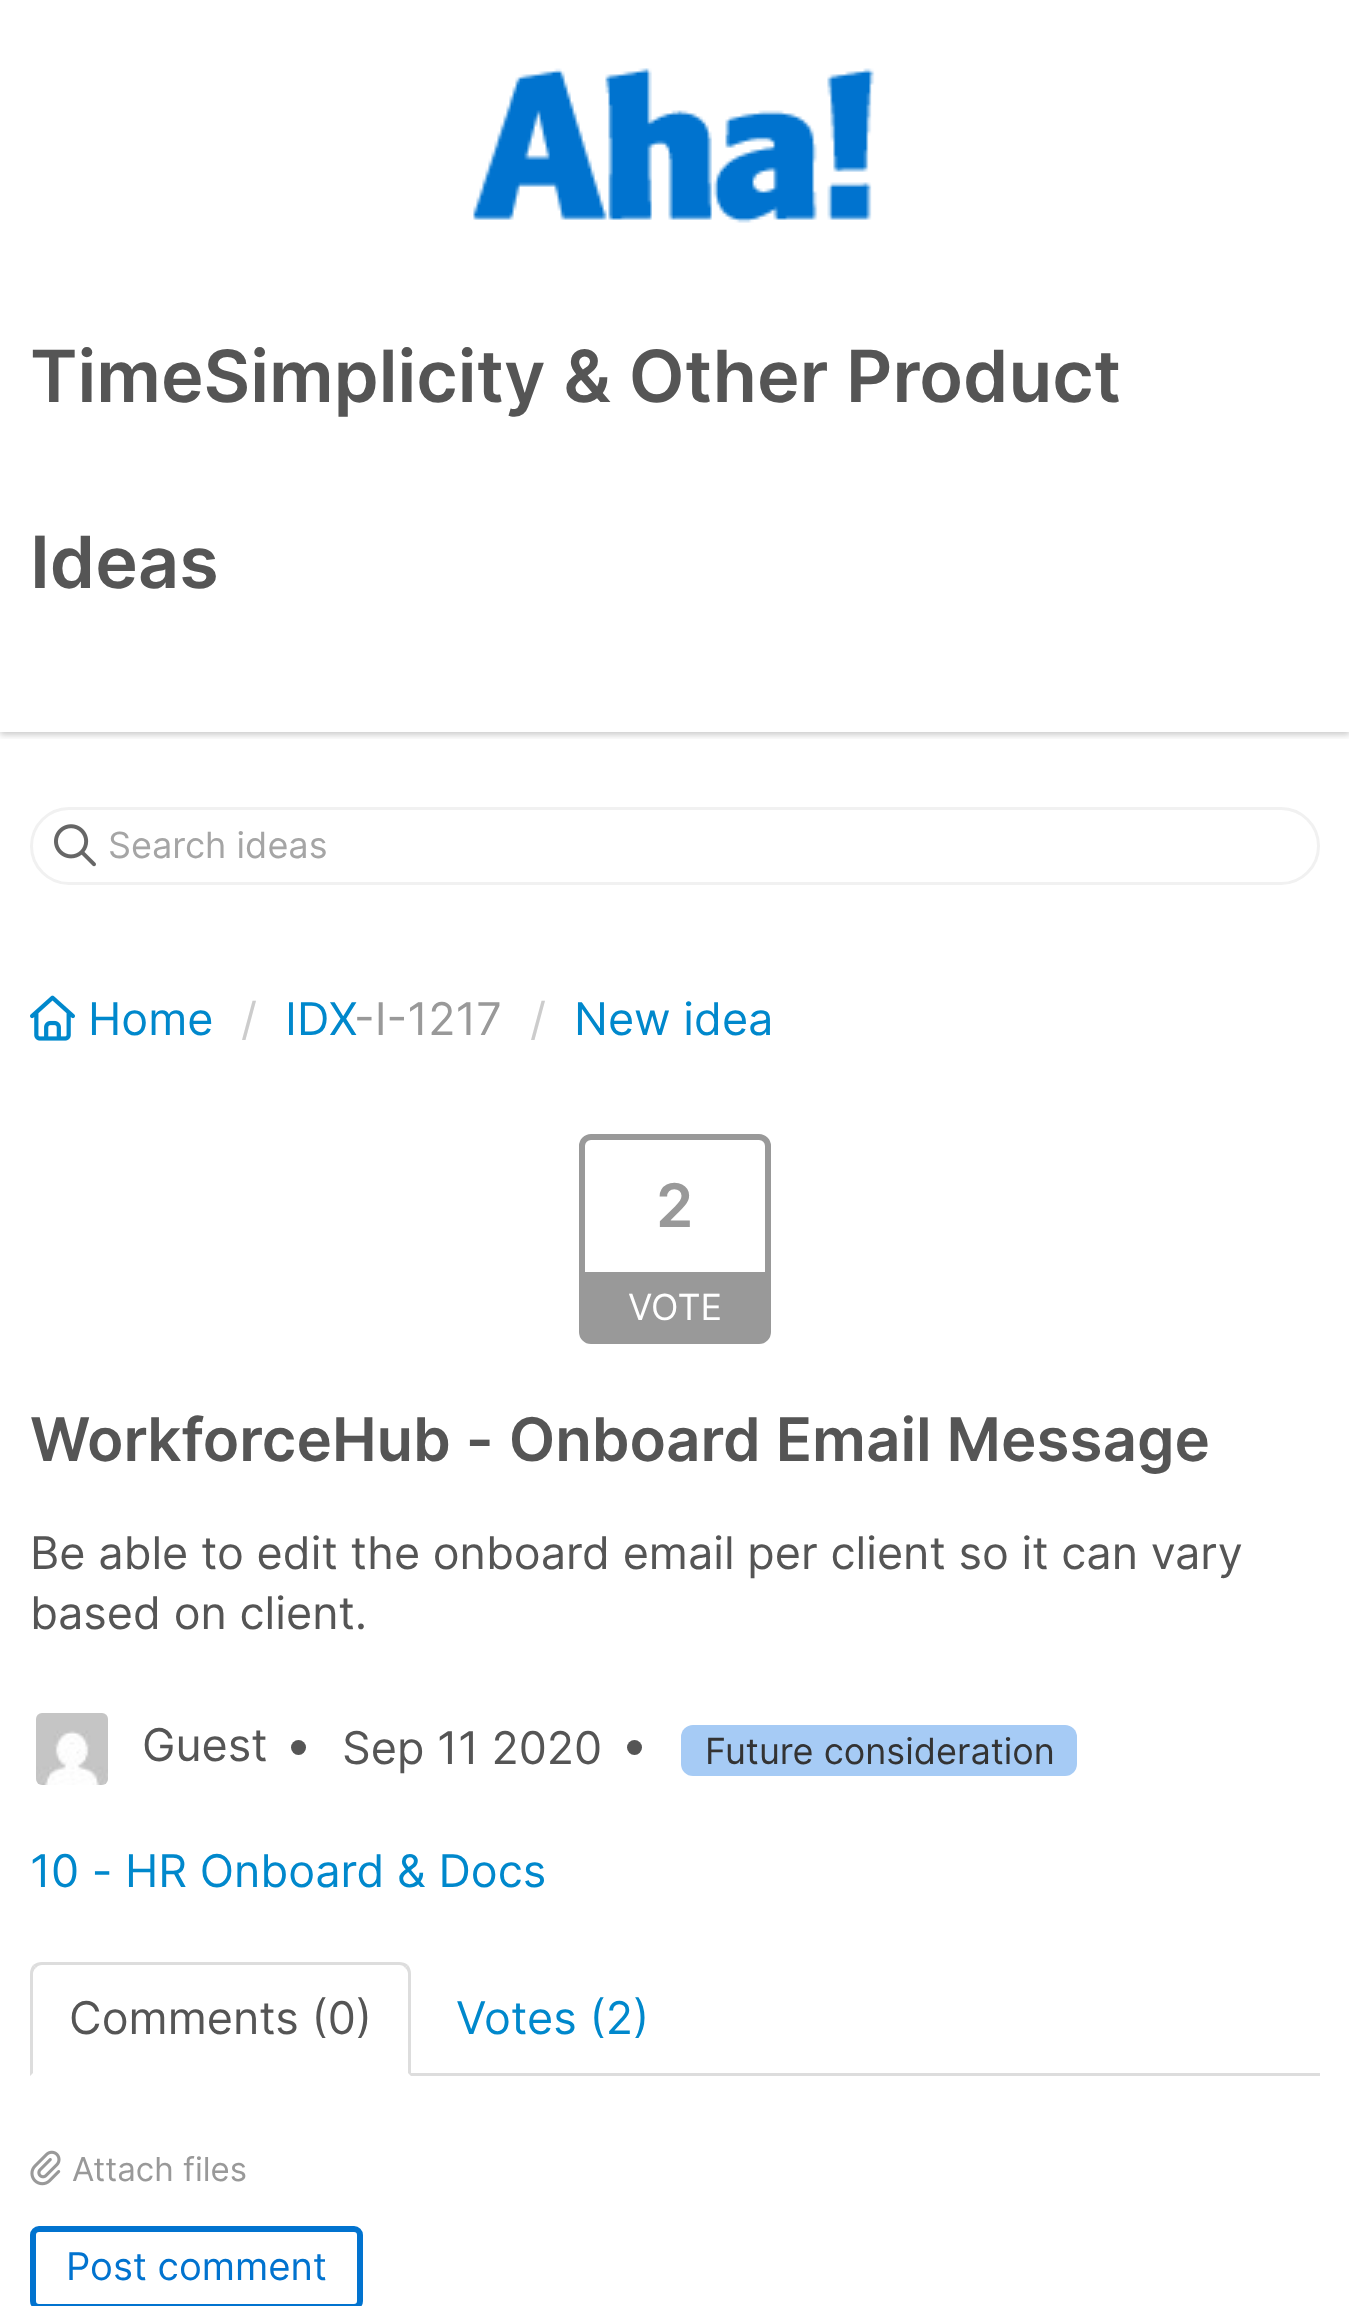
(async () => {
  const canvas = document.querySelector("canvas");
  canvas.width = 1349;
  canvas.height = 2306;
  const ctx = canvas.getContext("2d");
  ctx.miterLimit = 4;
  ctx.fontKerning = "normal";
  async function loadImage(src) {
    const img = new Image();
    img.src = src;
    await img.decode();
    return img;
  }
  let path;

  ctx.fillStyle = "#ffffff";
  ctx.fillRect(0, 0, 1349, 2306);
  ctx.save();
  ctx.beginPath();
  ctx.rect(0, 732, 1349, 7);
  ctx.clip();
  ctx.fillStyle = "rgba(0, 0, 0, 0.2)";
  ctx.filter = "blur(3px)";
  ctx.beginPath();
  ctx.rect(0, 3, 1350, 732);
  ctx.fill();
  ctx.filter = "none";
  ctx.restore();
  ctx.drawImage(await loadImage("img/1.png"), 473, 68, 402, 155);
  ctx.beginPath();
  ctx.roundRect(31.5, 808.5, 1287, 75, 37.5);
  ctx.strokeStyle = "#f1f1f1";
  ctx.lineWidth = 3;
  ctx.stroke();
  ctx.drawImage(await loadImage("img/2.png"), 54, 824, 42, 43);
  ctx.drawImage(await loadImage("img/3.png"), 30, 995, 45, 46);
  ctx.beginPath();
  ctx.roundRect(582, 1137, 186, 204, 9);
  ctx.strokeStyle = "#999999";
  ctx.lineWidth = 6;
  ctx.stroke();
  ctx.fillStyle = "#999999";
  ctx.fillRect(585, 1272, 180, 66);
  ctx.drawImage(await loadImage("img/4.png"), 36, 1713, 72, 72);
  ctx.fillStyle = "#555555";
  ctx.beginPath();
  ctx.arc(298.5, 1747.5, 7.5, 0, Math.PI * 2);
  ctx.fill();
  ctx.beginPath();
  ctx.arc(634.5, 1747.5, 7.5, 0, Math.PI * 2);
  ctx.fill();
  ctx.fillStyle = "#a6cbf5";
  ctx.beginPath();
  ctx.roundRect(681, 1725, 396, 51, 12);
  ctx.fill();
  ctx.fillStyle = "#dddddd";
  ctx.fillRect(411, 2073, 909, 3);
  path = new Path2D("M42 1962C38 1962 36 1963 33 1965L36 1968C37 1966 40 1965 42 1965H399C402 1965 404 1966 405 1968L408 1965C406 1963 402 1962 399 1962Z");
  ctx.fill(path);
  path = new Path2D("M411 2076V1974C411 1970 410 1968 408 1965L405 1968C407 1969 408 1972 408 1974V2073Z");
  ctx.fill(path);
  path = new Path2D("M30 2076L33 2073V1974C33 1972 34 1969 36 1968L33 1965C31 1968 30 1970 30 1974Z");
  ctx.fill(path);
  ctx.drawImage(await loadImage("img/5.png"), 30, 2150, 31, 36);
  ctx.beginPath();
  ctx.roundRect(33, 2229, 327, 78, 6);
  ctx.strokeStyle = "#0173cf";
  ctx.stroke();
  ctx.font = "600 72px Inter";
  ctx.fillStyle = "#555555";
  ctx.fillText("TimeSimplicity & Other Product", 30, 402);
  ctx.fillText("Ideas", 30, 588);
  ctx.font = "36px Inter";
  ctx.fillStyle = "#a5a5a5";
  ctx.fillText("Search ideas", 108, 858);
  ctx.font = "45px Inter";
  ctx.fillStyle = "#0088cc";
  ctx.fillText("Home", 88, 1035);
  ctx.fillStyle = "#cccccc";
  ctx.fillText("/", 241, 1035);
  ctx.fillStyle = "#0088cc";
  ctx.fillText("IDX", 285, 1035);
  ctx.fillStyle = "#999999";
  ctx.fillText("-I-1217", 354, 1035);
  ctx.fillStyle = "#cccccc";
  ctx.fillText("/", 530, 1035);
  ctx.fillStyle = "#0088cc";
  ctx.fillText("New idea", 574, 1035);
  ctx.font = "600 60px Inter";
  ctx.fillStyle = "#999999";
  ctx.fillText("2", 656, 1227);
  ctx.font = "36px Inter";
  ctx.fillStyle = "#ffffff";
  ctx.fillText("VOTE", 628, 1320);
  ctx.font = "600 60px Inter";
  ctx.fillStyle = "#555555";
  ctx.fillText("WorkforceHub - Onboard Email Message", 30, 1461);
  ctx.font = "45px Inter";
  for (const [text, x, y] of [
    ["Be able to edit the onboard email per client so it can vary", 30, 1569],
    ["based on client.", 30, 1629],
    ["Guest", 142, 1761],
    ["Sep 11 2020", 342, 1764],
  ]) {
    ctx.fillText(text, x, y);
  }
  ctx.font = "36px Inter";
  ctx.fillStyle = "#333333";
  ctx.fillText("Future consideration", 705, 1764);
  ctx.font = "45px Inter";
  ctx.fillStyle = "#0088cc";
  ctx.fillText("10 - HR Onboard & Docs", 30, 1887);
  ctx.fillStyle = "#555555";
  ctx.fillText("Comments (0)", 69, 2034);
  ctx.fillStyle = "#0088cc";
  ctx.fillText("Votes (2)", 456, 2034);
  ctx.font = "33px Inter";
  ctx.fillStyle = "#999999";
  ctx.fillText("Attach files", 72, 2181);
  ctx.font = "38.25px Inter";
  ctx.fillStyle = "#0173cf";
  ctx.fillText("Post comment", 66, 2280);
})();
